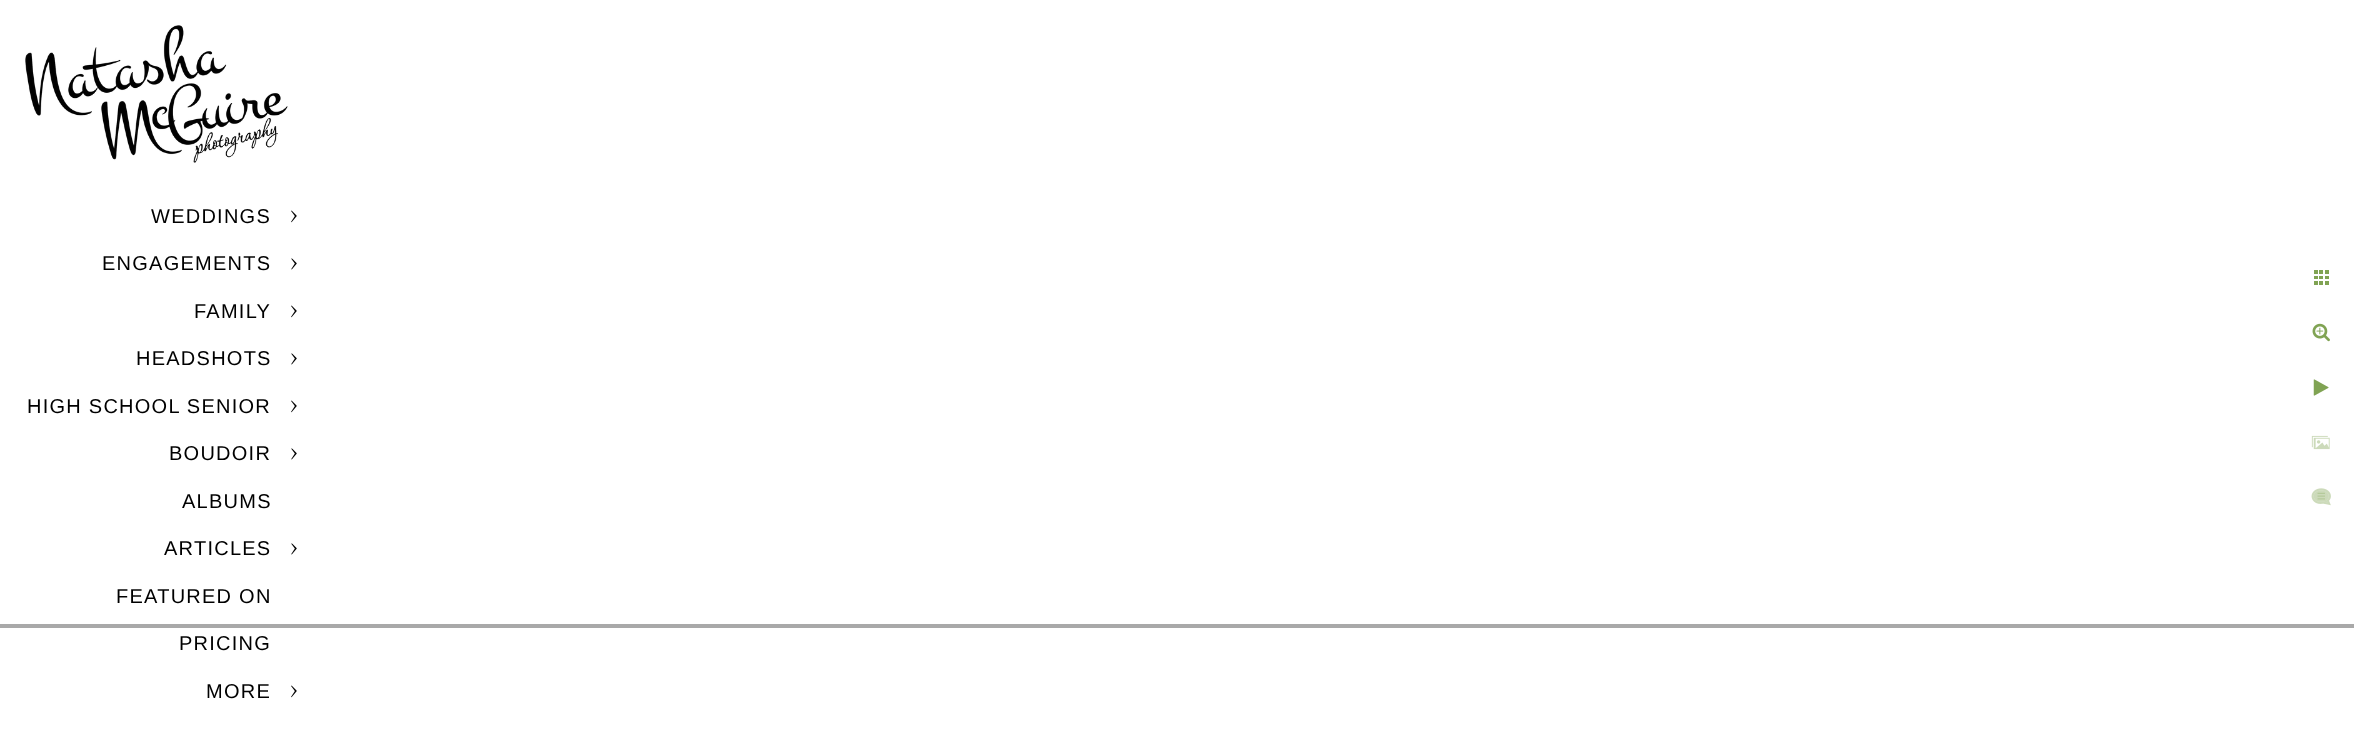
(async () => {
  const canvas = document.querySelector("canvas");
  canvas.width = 2354;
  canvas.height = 748;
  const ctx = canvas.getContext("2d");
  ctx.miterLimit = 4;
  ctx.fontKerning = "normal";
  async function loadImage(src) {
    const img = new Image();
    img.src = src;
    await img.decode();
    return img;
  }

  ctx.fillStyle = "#ffffff";
  ctx.fillRect(0, 0, 2354, 748);
  ctx.drawImage(await loadImage("img/1.png"), 25, 25, 263, 138);
  ctx.drawImage(await loadImage("img/2.png"), 291, 210, 6, 13);
  ctx.drawImage(await loadImage("img/3.png"), 291, 258, 6, 12);
  ctx.drawImage(await loadImage("img/2.png"), 291, 305, 6, 13);
  ctx.drawImage(await loadImage("img/3.png"), 291, 353, 6, 12);
  ctx.drawImage(await loadImage("img/2.png"), 291, 400, 6, 13);
  ctx.drawImage(await loadImage("img/3.png"), 291, 448, 6, 12);
  ctx.drawImage(await loadImage("img/3.png"), 291, 543, 6, 12);
  ctx.drawImage(await loadImage("img/2.png"), 291, 685, 6, 13);
  ctx.drawImage(await loadImage("img/4.png"), 2314, 270, 15, 15);
  ctx.drawImage(await loadImage("img/5.png"), 2312, 323, 18, 19);
  ctx.drawImage(await loadImage("img/6.png"), 2313, 379, 16, 17);
  ctx.drawImage(await loadImage("img/7.png"), 2311, 435, 19, 15);
  ctx.drawImage(await loadImage("img/8.png"), 2311, 488, 20, 18);
  ctx.fillStyle = "#a9a9a9";
  ctx.fillRect(0, 624, 2354, 4);
  ctx.letterSpacing = "1.25px";
  ctx.font = "20px Liberation Sans";
  ctx.fillStyle = "#000000";
  for (const [text, x, y] of [
    ["WEDDINGS", 151, 223],
    ["ENGAGEMENTS", 102, 270],
    ["FAMILY", 194, 318],
    ["HEADSHOTS", 136, 365],
    ["HIGH SCHOOL SENIOR", 27, 413],
    ["BOUDOIR", 169, 460],
    ["ALBUMS", 182, 508],
    ["ARTICLES", 164, 555],
    ["FEATURED ON", 116, 603],
    ["PRICING", 179, 650],
    ["MORE", 206, 698],
  ]) {
    ctx.fillText(text, x, y);
  }
})();
